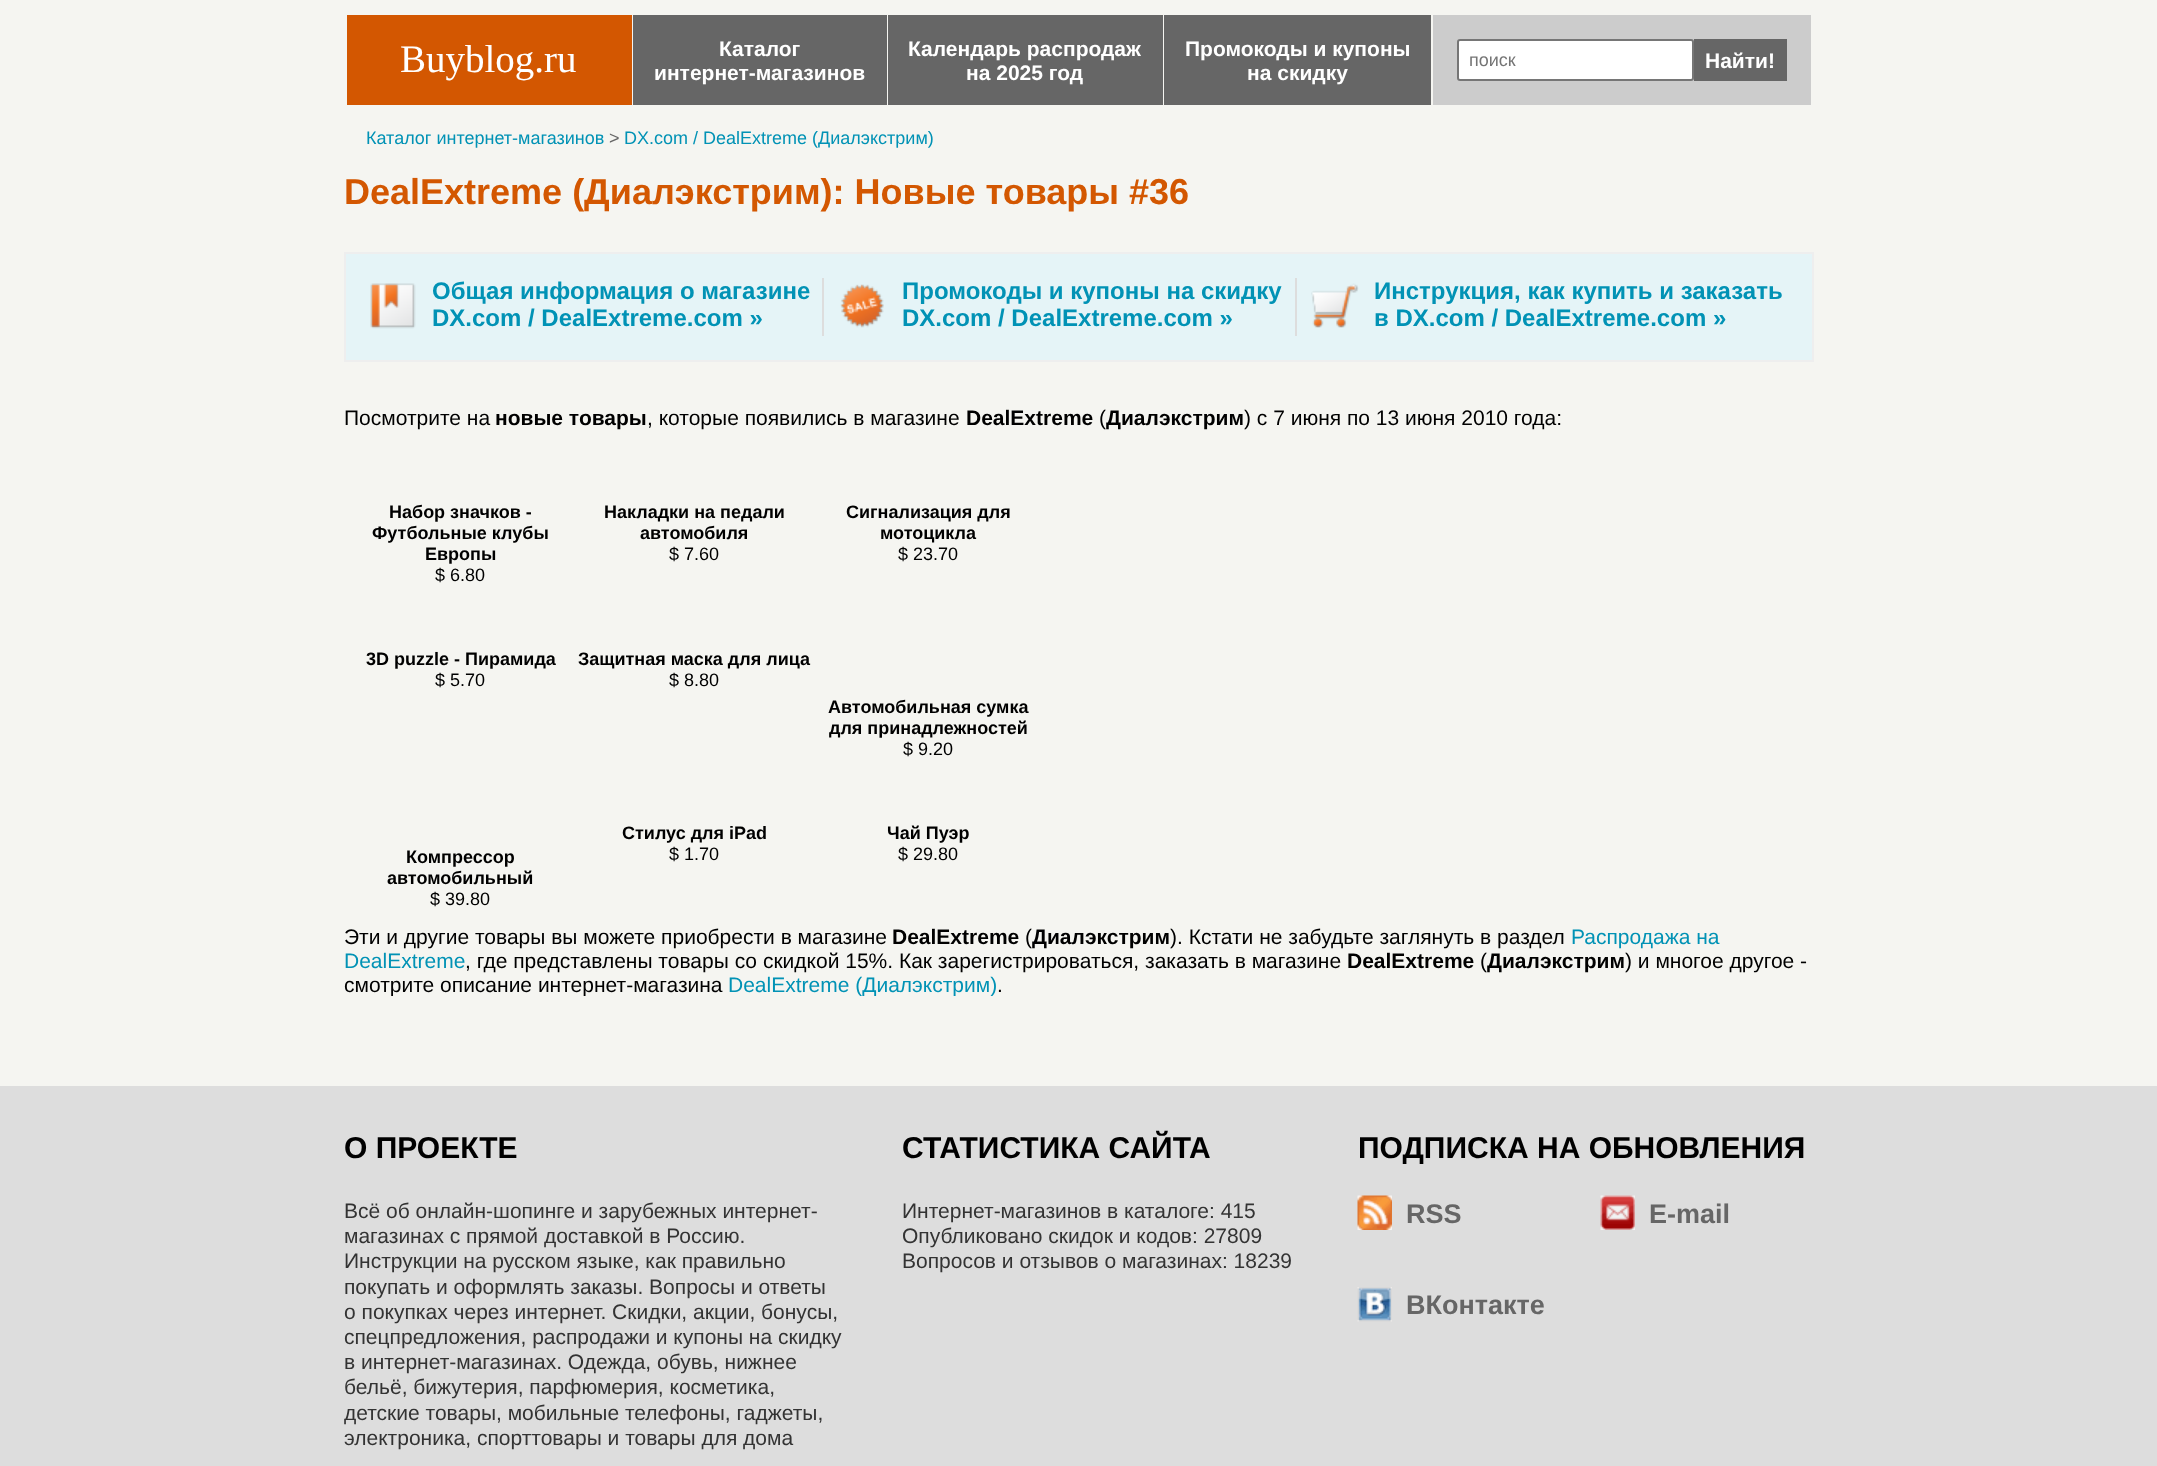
(async () => {
  const canvas = document.querySelector("canvas");
  canvas.width = 2157;
  canvas.height = 1466;
  const ctx = canvas.getContext("2d");
  ctx.miterLimit = 4;
  ctx.fontKerning = "normal";
  async function loadImage(src) {
    const img = new Image();
    img.src = src;
    await img.decode();
    return img;
  }

  ctx.fillStyle = "#f5f5f1";
  ctx.fillRect(0, 0, 2157, 1466);
  for (const [x, y, w, h, color] of [
    [347, 15, 285, 90, "#d35701"],
    [633, 15, 254, 90, "#666666"],
    [888, 15, 275, 90, "#666666"],
    [1164, 15, 267, 90, "#666666"],
    [1433, 15, 378, 90, "#cccccc"],
  ]) {
    ctx.fillStyle = color;
    ctx.fillRect(x, y, w, h);
  }
  ctx.fillStyle = "#ffffff";
  ctx.beginPath();
  ctx.roundRect(1458, 40, 235, 40, 2);
  ctx.fill();
  ctx.strokeStyle = "#767676";
  ctx.lineWidth = 2;
  ctx.stroke();
  ctx.fillStyle = "#666666";
  ctx.fillRect(1694, 39, 93, 42);
  ctx.fillStyle = "#e5f4f7";
  ctx.beginPath();
  ctx.rect(345, 253, 1468, 108);
  ctx.fill();
  ctx.strokeStyle = "#eeeeee";
  ctx.stroke();
  ctx.fillStyle = "#dddddd";
  ctx.fillRect(822, 278, 2, 58);
  ctx.drawImage(await loadImage("img/1.png"), 370, 283, 46, 46);
  ctx.fillRect(1295, 278, 2, 58);
  ctx.drawImage(await loadImage("img/2.png"), 840, 284, 44, 44);
  ctx.drawImage(await loadImage("img/3.png"), 1311, 283, 48, 45);
  ctx.fillRect(0, 1086, 2157, 380);
  ctx.drawImage(await loadImage("img/4.png"), 1357, 1195, 35, 35);
  ctx.drawImage(await loadImage("img/5.png"), 1600, 1195, 35, 35);
  ctx.drawImage(await loadImage("img/6.png"), 1357, 1287, 35, 35);
  ctx.font = "39px Liberation Serif";
  ctx.fillStyle = "#ffffff";
  ctx.fillText("Buyblog.ru", 400, 72);
  ctx.font = "bold 21px Liberation Sans";
  for (const [text, x, y] of [
    ["Каталог", 719, 56],
    ["интернет-магазинов", 654, 80],
    ["Календарь распродаж", 908, 56],
    ["на 2025 год", 966, 80],
    ["Промокоды и купоны", 1185, 56],
    ["на скидку", 1247, 80],
  ]) {
    ctx.fillText(text, x, y);
  }
  ctx.font = "18px Liberation Sans";
  ctx.fillStyle = "#757575";
  ctx.fillText("поиск", 1469, 66);
  ctx.font = "bold 21px Liberation Sans";
  ctx.fillStyle = "#ffffff";
  ctx.fillText("Найти!", 1705, 68);
  ctx.font = "18px Liberation Sans";
  ctx.fillStyle = "#0192b5";
  ctx.fillText("Каталог интернет-магазинов", 366, 144);
  ctx.fillStyle = "#666666";
  ctx.fillText(">", 609, 144);
  ctx.fillStyle = "#0192b5";
  ctx.fillText("DX.com / DealExtreme (Диалэкстрим)", 624, 144);
  ctx.font = "bold 36px Liberation Sans";
  ctx.fillStyle = "#d35701";
  ctx.fillText("DealExtreme (Диалэкстрим): Новые товары #36", 344, 204);
  ctx.font = "bold 24px Liberation Sans";
  ctx.fillStyle = "#0192b5";
  for (const [text, x, y] of [
    ["Общая информация о магазине", 432, 299],
    ["DX.com / DealExtreme.com »", 432, 326],
    ["Промокоды и купоны на скидку", 902, 299],
    ["DX.com / DealExtreme.com »", 902, 326],
    ["Инструкция, как купить и заказать", 1374, 299],
    ["в DX.com / DealExtreme.com »", 1374, 326],
  ]) {
    ctx.fillText(text, x, y);
  }
  ctx.font = "21px Liberation Sans";
  ctx.fillStyle = "#000000";
  ctx.fillText("Посмотрите на", 344, 425);
  ctx.font = "bold 21px Liberation Sans";
  ctx.fillText("новые товары", 495, 425);
  ctx.font = "21px Liberation Sans";
  ctx.fillText(", которые появились в магазине", 647, 425);
  ctx.font = "bold 21px Liberation Sans";
  ctx.fillText("DealExtreme", 966, 425);
  ctx.font = "21px Liberation Sans";
  ctx.fillText("(", 1099, 425);
  ctx.font = "bold 21px Liberation Sans";
  ctx.fillText("Диалэкстрим", 1106, 425);
  ctx.font = "21px Liberation Sans";
  ctx.fillText(") с 7 июня по 13 июня 2010 года:", 1244, 425);
  ctx.font = "bold 18px Liberation Sans";
  for (const [text, x, y] of [
    ["Набор значков -", 389, 518],
    ["Футбольные клубы", 372, 539],
    ["Европы", 425, 560],
  ]) {
    ctx.fillText(text, x, y);
  }
  ctx.font = "18px Liberation Sans";
  ctx.fillText("$ 6.80", 435, 581);
  ctx.font = "bold 18px Liberation Sans";
  ctx.fillText("Накладки на педали", 604, 518);
  ctx.fillText("автомобиля", 640, 539);
  ctx.font = "18px Liberation Sans";
  ctx.fillText("$ 7.60", 669, 560);
  ctx.font = "bold 18px Liberation Sans";
  ctx.fillText("Сигнализация для", 846, 518);
  ctx.fillText("мотоцикла", 880, 539);
  ctx.font = "18px Liberation Sans";
  ctx.fillText("$ 23.70", 898, 560);
  ctx.font = "bold 18px Liberation Sans";
  ctx.fillText("3D puzzle - Пирамида", 366, 665);
  ctx.font = "18px Liberation Sans";
  ctx.fillText("$ 5.70", 435, 686);
  ctx.font = "bold 18px Liberation Sans";
  ctx.fillText("Защитная маска для лица", 578, 665);
  ctx.font = "18px Liberation Sans";
  ctx.fillText("$ 8.80", 669, 686);
  ctx.font = "bold 18px Liberation Sans";
  ctx.fillText("Автомобильная сумка", 828, 713);
  ctx.fillText("для принадлежностей", 829, 734);
  ctx.font = "18px Liberation Sans";
  ctx.fillText("$ 9.20", 903, 755);
  ctx.font = "bold 18px Liberation Sans";
  ctx.fillText("Стилус для iPad", 622, 839);
  ctx.font = "18px Liberation Sans";
  ctx.fillText("$ 1.70", 669, 860);
  ctx.font = "bold 18px Liberation Sans";
  ctx.fillText("Чай Пуэр", 887, 839);
  ctx.font = "18px Liberation Sans";
  ctx.fillText("$ 29.80", 898, 860);
  ctx.font = "bold 18px Liberation Sans";
  ctx.fillText("Компрессор", 406, 863);
  ctx.fillText("автомобильный", 387, 884);
  ctx.font = "18px Liberation Sans";
  ctx.fillText("$ 39.80", 430, 905);
  ctx.font = "21px Liberation Sans";
  ctx.fillText("Эти и другие товары вы можете приобрести в магазине", 344, 944);
  ctx.font = "bold 21px Liberation Sans";
  ctx.fillText("DealExtreme", 892, 944);
  ctx.font = "21px Liberation Sans";
  ctx.fillText("(", 1025, 944);
  ctx.font = "bold 21px Liberation Sans";
  ctx.fillText("Диалэкстрим", 1032, 944);
  ctx.font = "21px Liberation Sans";
  ctx.fillText("). Кстати не забудьте заглянуть в раздел", 1170, 944);
  ctx.fillStyle = "#0192b5";
  ctx.fillText("Распродажа на", 1571, 944);
  ctx.fillText("DealExtreme", 344, 968);
  ctx.fillStyle = "#000000";
  ctx.fillText(", где представлены товары со скидкой 15%. Как зарегистрироваться, заказать в магазине", 465, 968);
  ctx.font = "bold 21px Liberation Sans";
  ctx.fillText("DealExtreme", 1347, 968);
  ctx.font = "21px Liberation Sans";
  ctx.fillText("(", 1480, 968);
  ctx.font = "bold 21px Liberation Sans";
  ctx.fillText("Диалэкстрим", 1487, 968);
  ctx.font = "21px Liberation Sans";
  ctx.fillText(") и многое другое -", 1625, 968);
  ctx.save();
  ctx.beginPath();
  ctx.rect(344, 405, 1470, 591);
  ctx.clip();
  ctx.fillText("смотрите описание интернет-магазина", 344, 992);
  ctx.fillStyle = "#0192b5";
  ctx.fillText("DealExtreme (Диалэкстрим)", 728, 992);
  ctx.restore();
  ctx.fillText(".", 997, 992);
  ctx.font = "bold 30px Liberation Sans";
  ctx.fillText("О ПРОЕКТЕ", 344, 1158);
  ctx.font = "21px Liberation Sans";
  ctx.fillStyle = "#333333";
  for (const [text, x, y] of [
    ["Всё об онлайн-шопинге и зарубежных интернет-", 344, 1218],
    ["магазинах c прямой доставкой в Россию.", 344, 1243],
    ["Инструкции на русском языке, как правильно", 344, 1268],
    ["покупать и оформлять заказы. Вопросы и ответы", 344, 1294],
    ["о покупках через интернет. Скидки, акции, бонусы,", 344, 1319],
    ["спецпредложения, распродажи и купоны на скидку", 344, 1344],
    ["в интернет-магазинах. Одежда, обувь, нижнее", 344, 1369],
    ["бельё, бижутерия, парфюмерия, косметика,", 344, 1394],
    ["детские товары, мобильные телефоны, гаджеты,", 344, 1420],
    ["электроника, спорттовары и товары для дома", 344, 1445],
  ]) {
    ctx.fillText(text, x, y);
  }
  ctx.font = "bold 30px Liberation Sans";
  ctx.fillStyle = "#000000";
  ctx.fillText("СТАТИСТИКА САЙТА", 902, 1158);
  ctx.font = "21px Liberation Sans";
  ctx.fillStyle = "#333333";
  for (const [text, x, y] of [
    ["Интернет-магазинов в каталоге: 415", 902, 1218],
    ["Опубликовано скидок и кодов: 27809", 902, 1243],
    ["Вопросов и отзывов о магазинах: 18239", 902, 1268],
  ]) {
    ctx.fillText(text, x, y);
  }
  ctx.font = "bold 30px Liberation Sans";
  ctx.fillStyle = "#000000";
  ctx.fillText("ПОДПИСКА НА ОБНОВЛЕНИЯ", 1358, 1158);
  ctx.font = "bold 27px Liberation Sans";
  ctx.fillStyle = "#666666";
  for (const [text, x, y] of [
    ["RSS", 1406, 1223],
    ["E-mail", 1649, 1223],
    ["ВКонтакте", 1406, 1314],
  ]) {
    ctx.fillText(text, x, y);
  }
})();
